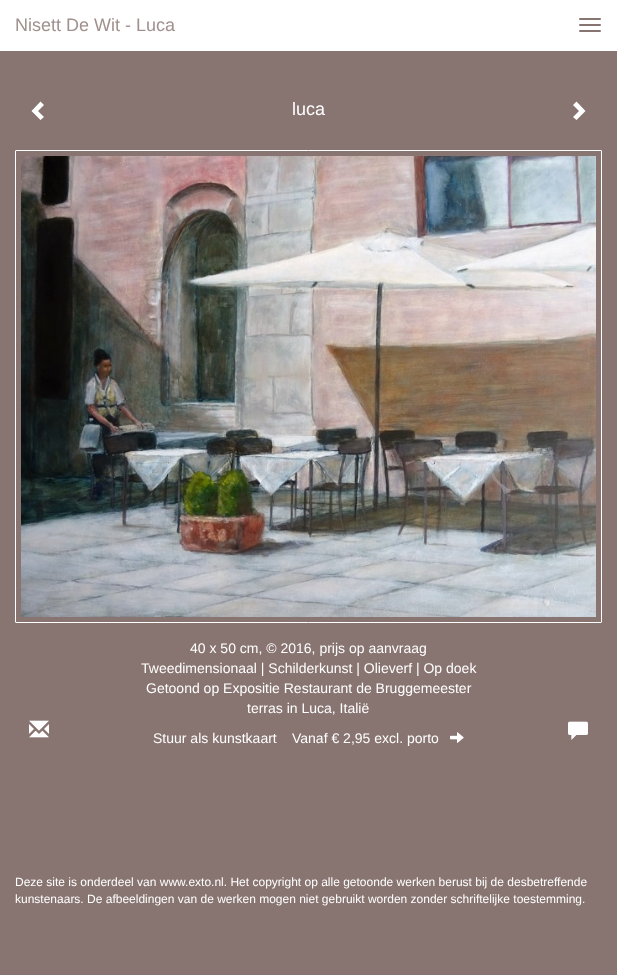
(async () => {
  const canvas = document.querySelector("canvas");
  canvas.width = 617;
  canvas.height = 975;
  const ctx = canvas.getContext("2d");
  ctx.miterLimit = 4;
  ctx.fontKerning = "normal";
  async function loadImage(src) {
    const img = new Image();
    img.src = src;
    await img.decode();
    return img;
  }
  let path;

  ctx.fillStyle = "#887571";
  ctx.fillRect(0, 0, 617, 975);
  ctx.fillStyle = "#ffffff";
  ctx.fillRect(0, 0, 617, 51);
  ctx.fillStyle = "#887571";
  ctx.beginPath();
  ctx.roundRect(579, 18, 22, 2, 1);
  ctx.fill();
  ctx.beginPath();
  ctx.roundRect(579, 24, 22, 2, 1);
  ctx.fill();
  ctx.beginPath();
  ctx.roundRect(579, 30, 22, 2, 1);
  ctx.fill();
  ctx.fillStyle = "#ffffff";
  path = new Path2D("M44 105L38 111L44 117L40.5 120L31.5 111L40.5 101.5Z");
  ctx.fill(path);
  path = new Path2D("M585.5 111L576.5 120L573 117L579 111L573 105L576.5 101.5Z");
  ctx.fill(path);
  ctx.beginPath();
  ctx.roundRect(15.5, 150.5, 586, 472, 0.5);
  ctx.strokeStyle = "#ffffff";
  ctx.stroke();
  ctx.drawImage(await loadImage("img/1.png"), 21, 156, 575, 461);
  ctx.drawImage(await loadImage("img/2.png"), 29, 720, 20, 18);
  ctx.drawImage(await loadImage("img/3.png"), 450, 732, 14, 11);
  ctx.drawImage(await loadImage("img/4.png"), 568, 721, 20, 19);
  ctx.font = "18px Liberation Sans";
  ctx.fillStyle = "#a0918d";
  ctx.fillText("Nisett De Wit - Luca", 15, 31);
  ctx.fillStyle = "#ffffff";
  ctx.fillText("luca", 292, 115);
  ctx.font = "14px Liberation Sans";
  for (const [text, x, y] of [
    ["40 x 50 cm, © 2016, prijs op aanvraag", 190, 653],
    ["Tweedimensionaal | Schilderkunst | Olieverf | Op doek", 141, 673],
    ["Getoond op Expositie Restaurant de Bruggemeester", 146, 693],
    ["terras in Luca, Italië", 247, 713],
    ["Stuur als kunstkaart", 153, 743],
    ["Vanaf € 2,95 excl. porto", 292, 743],
  ]) {
    ctx.fillText(text, x, y);
  }
  ctx.font = "12px Liberation Sans";
  ctx.fillText("Deze site is onderdeel van www.exto.nl. Het copyright op alle getoonde werken berust bij de desbetreffende", 15, 886);
  ctx.fillText("kunstenaars. De afbeeldingen van de werken mogen niet gebruikt worden zonder schriftelijke toestemming.", 15, 903);
})();
